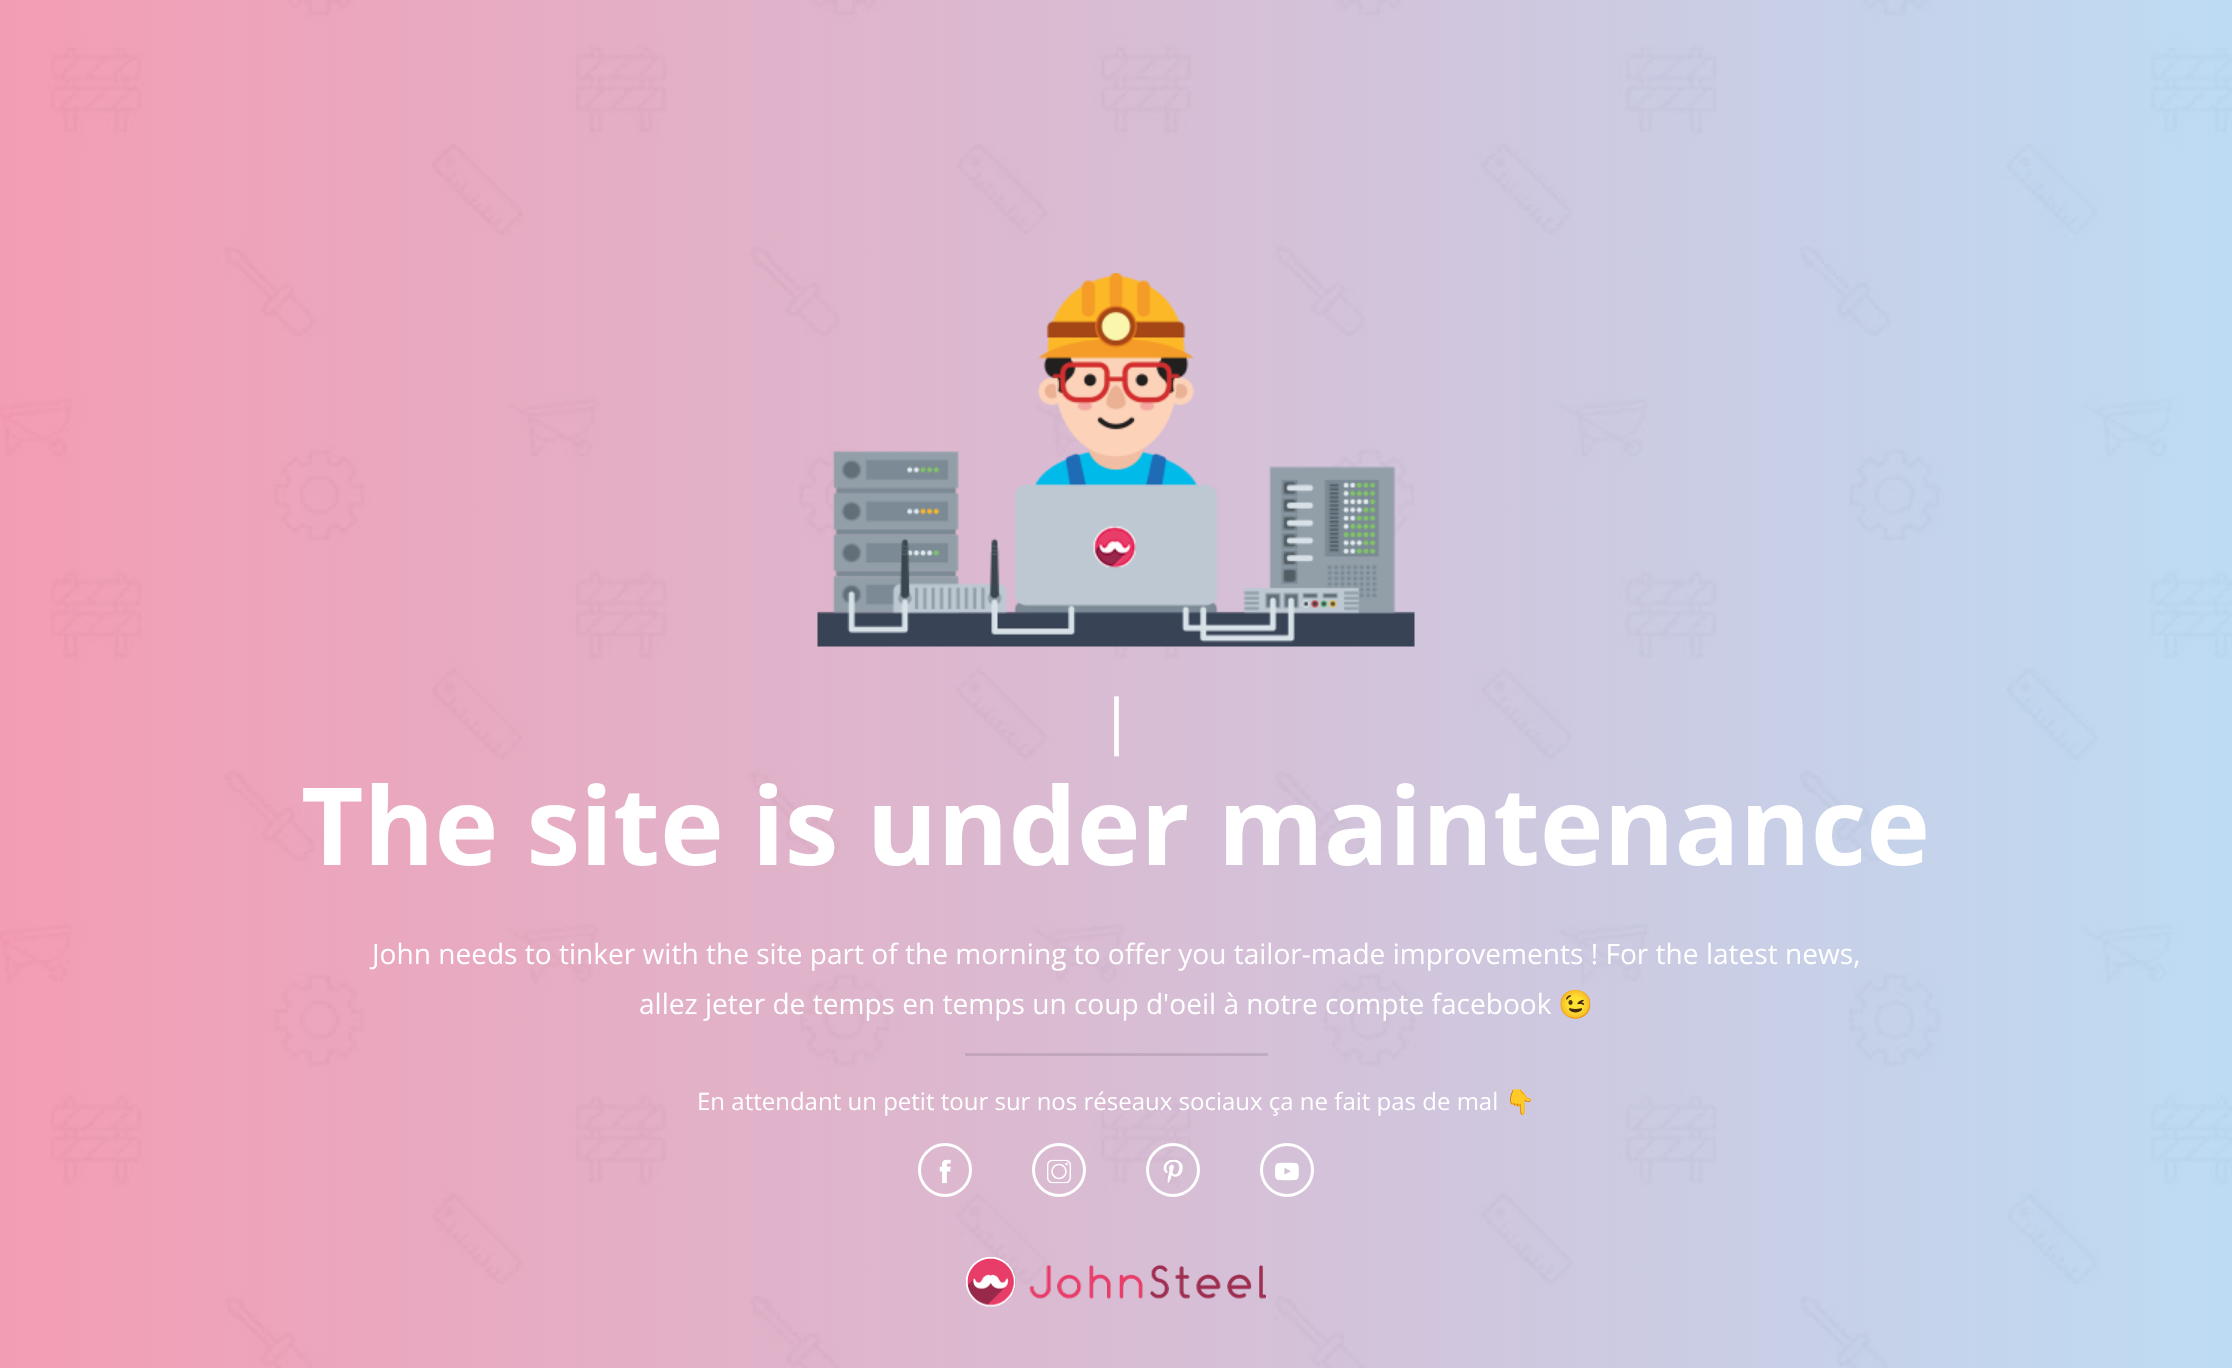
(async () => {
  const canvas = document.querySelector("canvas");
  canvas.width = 2232;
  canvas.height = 1368;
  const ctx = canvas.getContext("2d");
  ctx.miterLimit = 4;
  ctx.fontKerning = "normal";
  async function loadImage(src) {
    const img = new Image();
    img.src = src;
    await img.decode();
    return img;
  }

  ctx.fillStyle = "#ffffff";
  ctx.fillRect(0, 0, 2232, 1368);
  ctx.drawImage(await loadImage("img/1.png"), 0, 0, 2232, 1368);
  ctx.drawImage(await loadImage("img/2.png"), 817, 273, 598, 374);
  ctx.fillStyle = "rgba(0, 0, 0, 0.1)";
  ctx.fillRect(965, 1053, 303, 3);
  ctx.beginPath();
  ctx.arc(945, 1170, 25.5, 0, Math.PI * 2);
  ctx.strokeStyle = "#ffffff";
  ctx.lineWidth = 3;
  ctx.stroke();
  ctx.drawImage(await loadImage("img/3.png"), 939, 1159, 12, 25);
  ctx.beginPath();
  ctx.arc(1059, 1170, 25.5, 0, Math.PI * 2);
  ctx.stroke();
  ctx.drawImage(await loadImage("img/4.png"), 1047, 1159, 24, 25);
  ctx.beginPath();
  ctx.arc(1173, 1170, 25.5, 0, Math.PI * 2);
  ctx.stroke();
  ctx.drawImage(await loadImage("img/5.png"), 1163, 1159, 20, 24);
  ctx.beginPath();
  ctx.arc(1287, 1170, 25.5, 0, Math.PI * 2);
  ctx.stroke();
  ctx.drawImage(await loadImage("img/6.png"), 1275, 1162, 24, 19);
  ctx.drawImage(await loadImage("img/7.png"), 966, 1257, 300, 50);
  ctx.font = "500 60px Open Sans";
  ctx.fillStyle = "#ffffff";
  ctx.fillText("|", 1100, 742);
  ctx.font = "bold 108px Open Sans";
  ctx.fillText("The site is under maintenance", 301, 865);
  ctx.font = "28.08px Open Sans";
  ctx.fillText("John needs to tinker with the site part of the morning to offer you tailor-made improvements ! For the latest news,", 372, 964);
  ctx.fillText("allez jeter de temps en temps un coup d'oeil à notre compte facebook", 639, 1014);
  ctx.font = "28.08px Noto Color Emoji";
  ctx.fillText("😉", 1558, 1014);
  ctx.font = "24px Open Sans";
  ctx.fillText("En attendant un petit tour sur nos réseaux sociaux ça ne fait pas de mal", 697, 1110);
  ctx.font = "24px 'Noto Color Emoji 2'";
  ctx.fillText("👇", 1505, 1110);
})();
